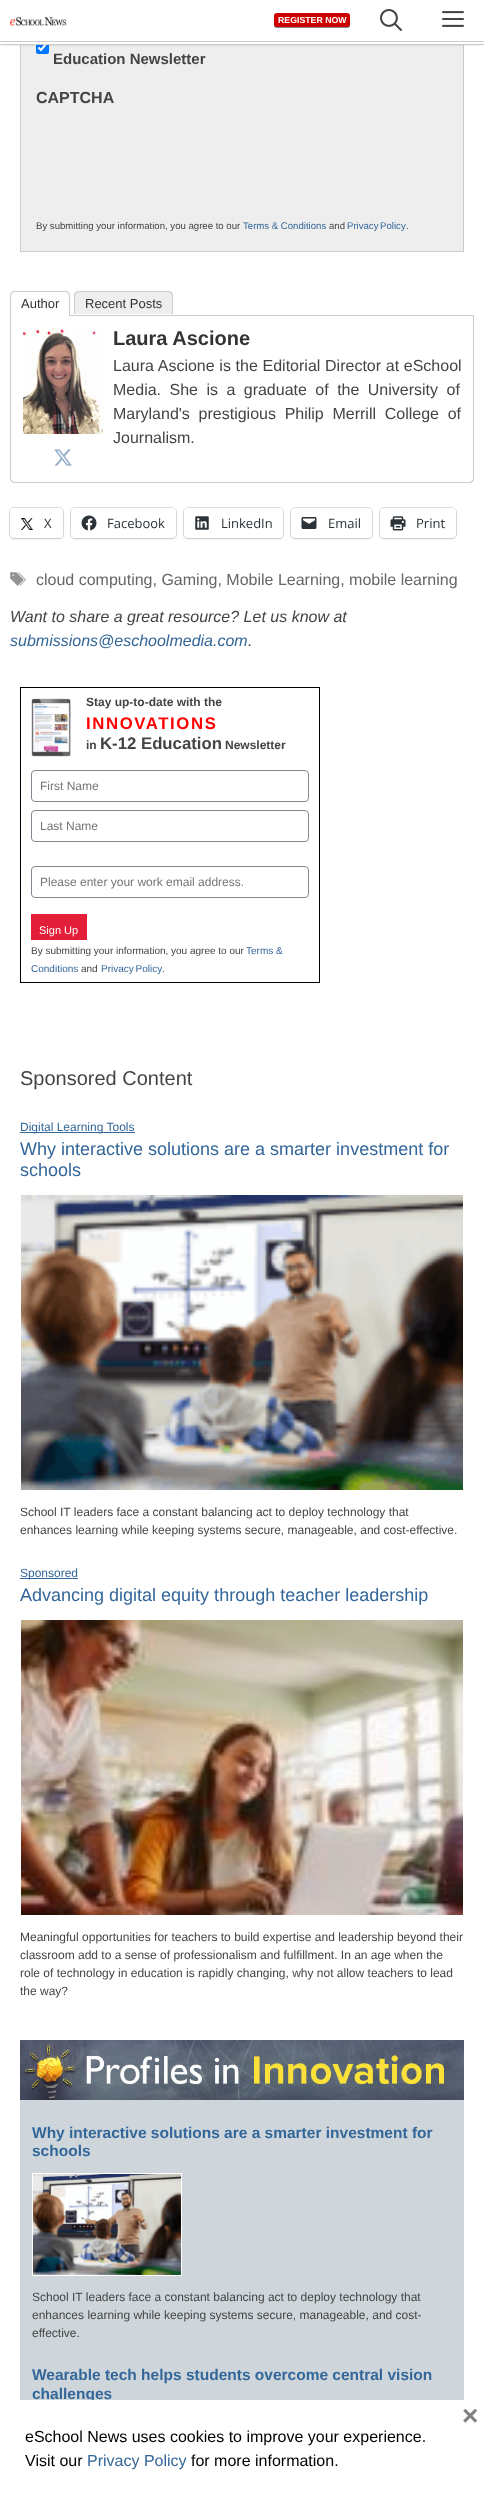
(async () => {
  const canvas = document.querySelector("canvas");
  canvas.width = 484;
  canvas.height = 2498;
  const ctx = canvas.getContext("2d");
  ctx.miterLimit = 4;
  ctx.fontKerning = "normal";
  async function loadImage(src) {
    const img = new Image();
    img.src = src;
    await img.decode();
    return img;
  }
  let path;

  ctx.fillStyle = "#ffffff";
  ctx.fillRect(0, 0, 484, 2498);
  ctx.fillStyle = "#eeeeee";
  ctx.fillRect(21, 45, 442, 206);
  ctx.strokeStyle = "#cccccc";
  ctx.strokeRect(20.5, -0.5, 443, 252);
  ctx.fillStyle = "#0075ff";
  ctx.beginPath();
  ctx.roundRect(36, 41, 13, 13, 2);
  ctx.fill();
  path = new Path2D("M38.5 47.5L41 50L46.5 43.5");
  ctx.strokeStyle = "#ffffff";
  ctx.lineWidth = 2.1;
  ctx.stroke(path);
  ctx.fillStyle = "rgba(0, 0, 0, 0.2)";
  ctx.filter = "blur(1px)";
  ctx.beginPath();
  ctx.rect(2, 4, 480, 41);
  ctx.fill();
  ctx.filter = "none";
  for (const [x, y, w, h, color] of [
    [0, 0, 484, 44, "#ffffff"],
    [0, 41, 484, 1, "#cccccc"],
    [0, 44, 484, 1, "#cccccc"],
  ]) {
    ctx.fillStyle = color;
    ctx.fillRect(x, y, w, h);
  }
  ctx.drawImage(await loadImage("img/1.png"), 10, 16, 57, 10);
  ctx.fillStyle = "#888888";
  ctx.filter = "blur(0.5px)";
  ctx.beginPath();
  ctx.roundRect(274, 14, 76, 14, 3);
  ctx.fill();
  ctx.filter = "none";
  ctx.fillStyle = "#cc0000";
  ctx.beginPath();
  ctx.roundRect(274, 13, 76, 14, 3);
  ctx.fill();
  ctx.drawImage(await loadImage("img/2.png"), 380, 9, 22, 22);
  ctx.drawImage(await loadImage("img/3.png"), 442, 11, 22, 16);
  ctx.fillStyle = "#cccccc";
  ctx.fillRect(70, 315, 404, 1);
  path = new Path2D("M15 291H65C68 291 70 293 70 296V316H10V296C10 293 12 291 15 291ZM15 292H65C67 292 69 294 69 296V316H11V296C11 294 13 292 15 292Z");
  ctx.fill(path, "evenodd");
  ctx.fillStyle = "#eeeeee";
  ctx.beginPath();
  ctx.roundRect(74, 291, 99, 23, [5, 5, 0, 0]);
  ctx.fill();
  ctx.fillStyle = "#cccccc";
  path = new Path2D("M79 291H168C171 291 173 293 173 296V314H74V296C74 293 76 291 79 291ZM79 292H168C170 292 172 294 172 296V314H75V296C75 294 77 292 79 292Z");
  ctx.fill(path, "evenodd");
  path = new Path2D("M10 316H474V478C474 481 472 483 469 483H15C12 483 10 481 10 478ZM11 316H473V478C473 480 471 482 469 482H15C13 482 11 480 11 478Z");
  ctx.fill(path, "evenodd");
  ctx.drawImage(await loadImage("img/4.png"), 23, 328, 80, 106);
  ctx.drawImage(await loadImage("img/5.png"), 54, 449, 18, 17);
  ctx.beginPath();
  ctx.roundRect(9.5, 507.5, 54, 31, 4.5);
  ctx.strokeStyle = "#e0e0e0";
  ctx.lineWidth = 1;
  ctx.stroke();
  ctx.fillStyle = "rgba(0, 0, 0, 0.12)";
  ctx.filter = "blur(1px)";
  ctx.beginPath();
  ctx.roundRect(10, 509, 53, 30, 4);
  ctx.fill();
  ctx.filter = "none";
  ctx.fillStyle = "#ffffff";
  ctx.beginPath();
  ctx.roundRect(10, 508, 53, 30, 4);
  ctx.fill();
  ctx.drawImage(await loadImage("img/6.png"), 21, 518, 12, 12);
  ctx.beginPath();
  ctx.roundRect(70.5, 507.5, 106, 31, 4.5);
  ctx.stroke();
  ctx.fillStyle = "rgba(0, 0, 0, 0.12)";
  ctx.filter = "blur(1px)";
  ctx.beginPath();
  ctx.roundRect(71, 509, 105, 30, 4);
  ctx.fill();
  ctx.filter = "none";
  ctx.fillStyle = "#ffffff";
  ctx.beginPath();
  ctx.roundRect(71, 508, 105, 30, 4);
  ctx.fill();
  ctx.drawImage(await loadImage("img/7.png"), 81, 515, 16, 16);
  ctx.beginPath();
  ctx.roundRect(183.5, 507.5, 100, 31, 4.5);
  ctx.stroke();
  ctx.fillStyle = "rgba(0, 0, 0, 0.12)";
  ctx.filter = "blur(1px)";
  ctx.beginPath();
  ctx.roundRect(184, 509, 99, 30, 4);
  ctx.fill();
  ctx.filter = "none";
  ctx.fillStyle = "#ffffff";
  ctx.beginPath();
  ctx.roundRect(184, 508, 99, 30, 4);
  ctx.fill();
  ctx.drawImage(await loadImage("img/8.png"), 195, 516, 14, 14);
  ctx.beginPath();
  ctx.roundRect(290.5, 507.5, 82, 31, 4.5);
  ctx.stroke();
  ctx.fillStyle = "rgba(0, 0, 0, 0.12)";
  ctx.filter = "blur(1px)";
  ctx.beginPath();
  ctx.roundRect(291, 509, 81, 30, 4);
  ctx.fill();
  ctx.filter = "none";
  ctx.fillStyle = "#ffffff";
  ctx.beginPath();
  ctx.roundRect(291, 508, 81, 30, 4);
  ctx.fill();
  ctx.drawImage(await loadImage("img/9.png"), 301, 517, 16, 12);
  ctx.beginPath();
  ctx.roundRect(379.5, 507.5, 77, 31, 4.5);
  ctx.stroke();
  ctx.fillStyle = "rgba(0, 0, 0, 0.12)";
  ctx.filter = "blur(1px)";
  ctx.beginPath();
  ctx.roundRect(380, 509, 76, 30, 4);
  ctx.fill();
  ctx.filter = "none";
  ctx.fillStyle = "#ffffff";
  ctx.beginPath();
  ctx.roundRect(380, 508, 76, 30, 4);
  ctx.fill();
  ctx.drawImage(await loadImage("img/10.png"), 390, 516, 16, 15);
  ctx.drawImage(await loadImage("img/11.png"), 10, 572, 16, 14);
  ctx.strokeStyle = "#000000";
  ctx.strokeRect(20.5, 687.5, 299, 295);
  ctx.drawImage(await loadImage("img/12.png"), 31, 698, 40, 59);
  ctx.beginPath();
  ctx.roundRect(31.5, 770.5, 277, 31, 3.5);
  ctx.strokeStyle = "#7e8993";
  ctx.stroke();
  ctx.beginPath();
  ctx.roundRect(31.5, 810.5, 277, 31, 3.5);
  ctx.stroke();
  ctx.beginPath();
  ctx.roundRect(31.5, 866.5, 277, 31, 3.5);
  ctx.stroke();
  ctx.fillStyle = "#e31e38";
  ctx.fillRect(31, 914, 56, 26);
  ctx.fillStyle = "#336699";
  ctx.fillRect(20, 1132, 115, 1);
  ctx.drawImage(await loadImage("img/13.png"), 21, 1195, 442, 295);
  ctx.fillRect(20, 1578, 58, 1);
  ctx.drawImage(await loadImage("img/14.png"), 21, 1620, 442, 295);
  ctx.fillStyle = "#ced6db";
  ctx.fillRect(20, 2100, 444, 300);
  ctx.drawImage(await loadImage("img/15.png"), 20, 2040, 444, 60);
  ctx.strokeStyle = "#ffffff";
  ctx.strokeRect(32.5, 2173.5, 149, 102);
  ctx.drawImage(await loadImage("img/16.png"), 33, 2174, 148, 101);
  ctx.font = "bold 8.75px Liberation Sans";
  ctx.fillStyle = "#ffffff";
  ctx.fillText("REGISTER NOW", 278, 23);
  ctx.font = "bold 15px Liberation Sans";
  ctx.fillStyle = "#444444";
  ctx.fillText("Education Newsletter", 53, 64);
  ctx.font = "bold 16px Liberation Sans";
  ctx.fillText("CAPTCHA", 36, 103);
  ctx.font = "9.6px Liberation Sans";
  ctx.fillText("By submitting your information, you agree to our", 36, 229);
  ctx.fillStyle = "#336699";
  ctx.fillText("Terms & Conditions", 243, 229);
  ctx.fillStyle = "#444444";
  ctx.fillText("and", 329, 229);
  ctx.wordSpacing = "-1px";
  ctx.fillStyle = "#336699";
  ctx.fillText("Privacy Policy", 347, 229);
  ctx.wordSpacing = "0px";
  ctx.fillStyle = "#444444";
  ctx.fillText(".", 406, 229);
  ctx.font = "13px Liberation Sans";
  ctx.fillStyle = "#333333";
  ctx.fillText("Author", 21, 308);
  ctx.fillText("Recent Posts", 85, 308);
  ctx.font = "bold 20px Liberation Sans";
  ctx.fillText("Laura Ascione", 113, 345);
  ctx.wordSpacing = "0.25px";
  ctx.font = "16px Liberation Sans";
  ctx.fillStyle = "#444444";
  ctx.fillText("Laura Ascione is the Editorial Director at eSchool", 113, 371);
  ctx.wordSpacing = "4px";
  ctx.fillText("Media. She is a graduate of the University of", 113, 395);
  ctx.wordSpacing = "4.25px";
  ctx.fillText("Maryland's prestigious Philip Merrill College of", 113, 419);
  ctx.wordSpacing = "0px";
  ctx.fillText("Journalism.", 113, 443);
  ctx.font = "13px Open Sans";
  ctx.fillStyle = "#2c3338";
  for (const [text, x, y] of [
    ["X", 44, 528],
    ["Facebook", 107, 528],
    ["LinkedIn", 221, 528],
    ["Email", 328, 528],
    ["Print", 416, 528],
  ]) {
    ctx.fillText(text, x, y);
  }
  ctx.font = "16px Liberation Sans";
  ctx.fillStyle = "#666666";
  ctx.fillText("cloud computing, Gaming, Mobile Learning, mobile learning", 36, 585);
  ctx.font = "italic 16px Liberation Sans";
  ctx.fillStyle = "#444444";
  ctx.fillText("Want to share a great resource? Let us know at", 10, 622);
  ctx.fillStyle = "#336699";
  ctx.fillText("submissions@eschoolmedia.com", 10, 646);
  ctx.fillStyle = "#444444";
  ctx.fillText(".", 248, 646);
  ctx.font = "bold 12px Liberation Sans";
  ctx.fillText("Stay up-to-date with the", 86, 706);
  ctx.letterSpacing = "1.6px";
  ctx.font = "bold 16.75px Liberation Sans";
  ctx.fillStyle = "#ff0000";
  ctx.fillText("INNOVATIONS", 86, 729);
  ctx.letterSpacing = "0px";
  ctx.font = "bold 12px Liberation Sans";
  ctx.fillStyle = "#444444";
  ctx.fillText("in", 86, 749);
  ctx.font = "bold 16.75px Liberation Sans";
  ctx.fillText("K-12 Education", 100, 749);
  ctx.font = "bold 12px Liberation Sans";
  ctx.fillText("Newsletter", 225, 749);
  ctx.font = "12px Liberation Sans";
  ctx.fillStyle = "#757575";
  for (const [text, x, y] of [
    ["First Name", 40, 790],
    ["Last Name", 40, 830],
    ["Please enter your work email address.", 40, 886],
  ]) {
    ctx.fillText(text, x, y);
  }
  ctx.font = "11px Liberation Sans";
  ctx.fillStyle = "#ffffff";
  ctx.fillText("Sign Up", 39, 934);
  ctx.font = "10px Liberation Sans";
  ctx.fillStyle = "#444444";
  ctx.fillText("By submitting your information, you agree to our", 31, 954);
  ctx.fillStyle = "#336699";
  ctx.fillText("Terms &", 246, 954);
  ctx.fillText("Conditions", 31, 972);
  ctx.fillStyle = "#444444";
  ctx.fillText("and", 81, 972);
  ctx.wordSpacing = "-1px";
  ctx.fillStyle = "#336699";
  ctx.fillText("Privacy Policy", 101, 972);
  ctx.wordSpacing = "0px";
  ctx.fillStyle = "#444444";
  ctx.fillText(".", 162, 972);
  ctx.font = "20px Liberation Sans";
  ctx.fillText("Sponsored Content", 20, 1085);
  ctx.font = "12px Liberation Sans";
  ctx.fillStyle = "#336699";
  ctx.fillText("Digital Learning Tools", 20, 1131);
  ctx.font = "18px Liberation Sans";
  ctx.fillText("Why interactive solutions are a smarter investment for", 20, 1155);
  ctx.fillText("schools", 20, 1176);
  ctx.font = "12px Liberation Sans";
  ctx.fillStyle = "#444444";
  ctx.fillText("School IT leaders face a constant balancing act to deploy technology that", 20, 1516);
  ctx.fillText("enhances learning while keeping systems secure, manageable, and cost-effective.", 20, 1534);
  ctx.fillStyle = "#336699";
  ctx.fillText("Sponsored", 20, 1577);
  ctx.font = "18px Liberation Sans";
  ctx.fillText("Advancing digital equity through teacher leadership", 20, 1601);
  ctx.font = "12px Liberation Sans";
  ctx.fillStyle = "#444444";
  for (const [text, x, y] of [
    ["Meaningful opportunities for teachers to build expertise and leadership beyond their", 20, 1941],
    ["classroom add to a sense of professionalism and fulfillment. In an age when the", 20, 1959],
    ["role of technology in education is rapidly changing, why not allow teachers to lead", 20, 1977],
    ["the way?", 20, 1995],
  ]) {
    ctx.fillText(text, x, y);
  }
  ctx.font = "bold 15.5px Liberation Sans";
  ctx.fillStyle = "#336699";
  ctx.fillText("Why interactive solutions are a smarter investment for", 32, 2138);
  ctx.fillText("schools", 32, 2156);
  ctx.font = "12px Liberation Sans";
  ctx.fillStyle = "#444444";
  for (const [text, x, y] of [
    ["School IT leaders face a constant balancing act to deploy technology that", 32, 2301],
    ["enhances learning while keeping systems secure, manageable, and cost-", 32, 2319],
    ["effective.", 32, 2337],
  ]) {
    ctx.fillText(text, x, y);
  }
  ctx.font = "bold 15.5px Liberation Sans";
  ctx.fillStyle = "#336699";
  ctx.fillText("Wearable tech helps students overcome central vision", 32, 2380);
  ctx.fillText("challenges", 32, 2399);
  ctx.fillStyle = "#ffffff";
  ctx.fillRect(86, 2400, 8, 3);
  ctx.font = "bold 28px Liberation Sans";
  ctx.fillStyle = "#808080";
  ctx.fillText("×", 462, 2425);
  ctx.font = "16px Liberation Sans";
  ctx.fillStyle = "#000000";
  ctx.fillText("eSchool News uses cookies to improve your experience.", 25, 2442);
  ctx.fillText("Visit our", 25, 2466);
  ctx.fillStyle = "#336699";
  ctx.fillText("Privacy Policy", 87, 2466);
  ctx.fillStyle = "#000000";
  ctx.fillText("for more information.", 191, 2466);
})();
